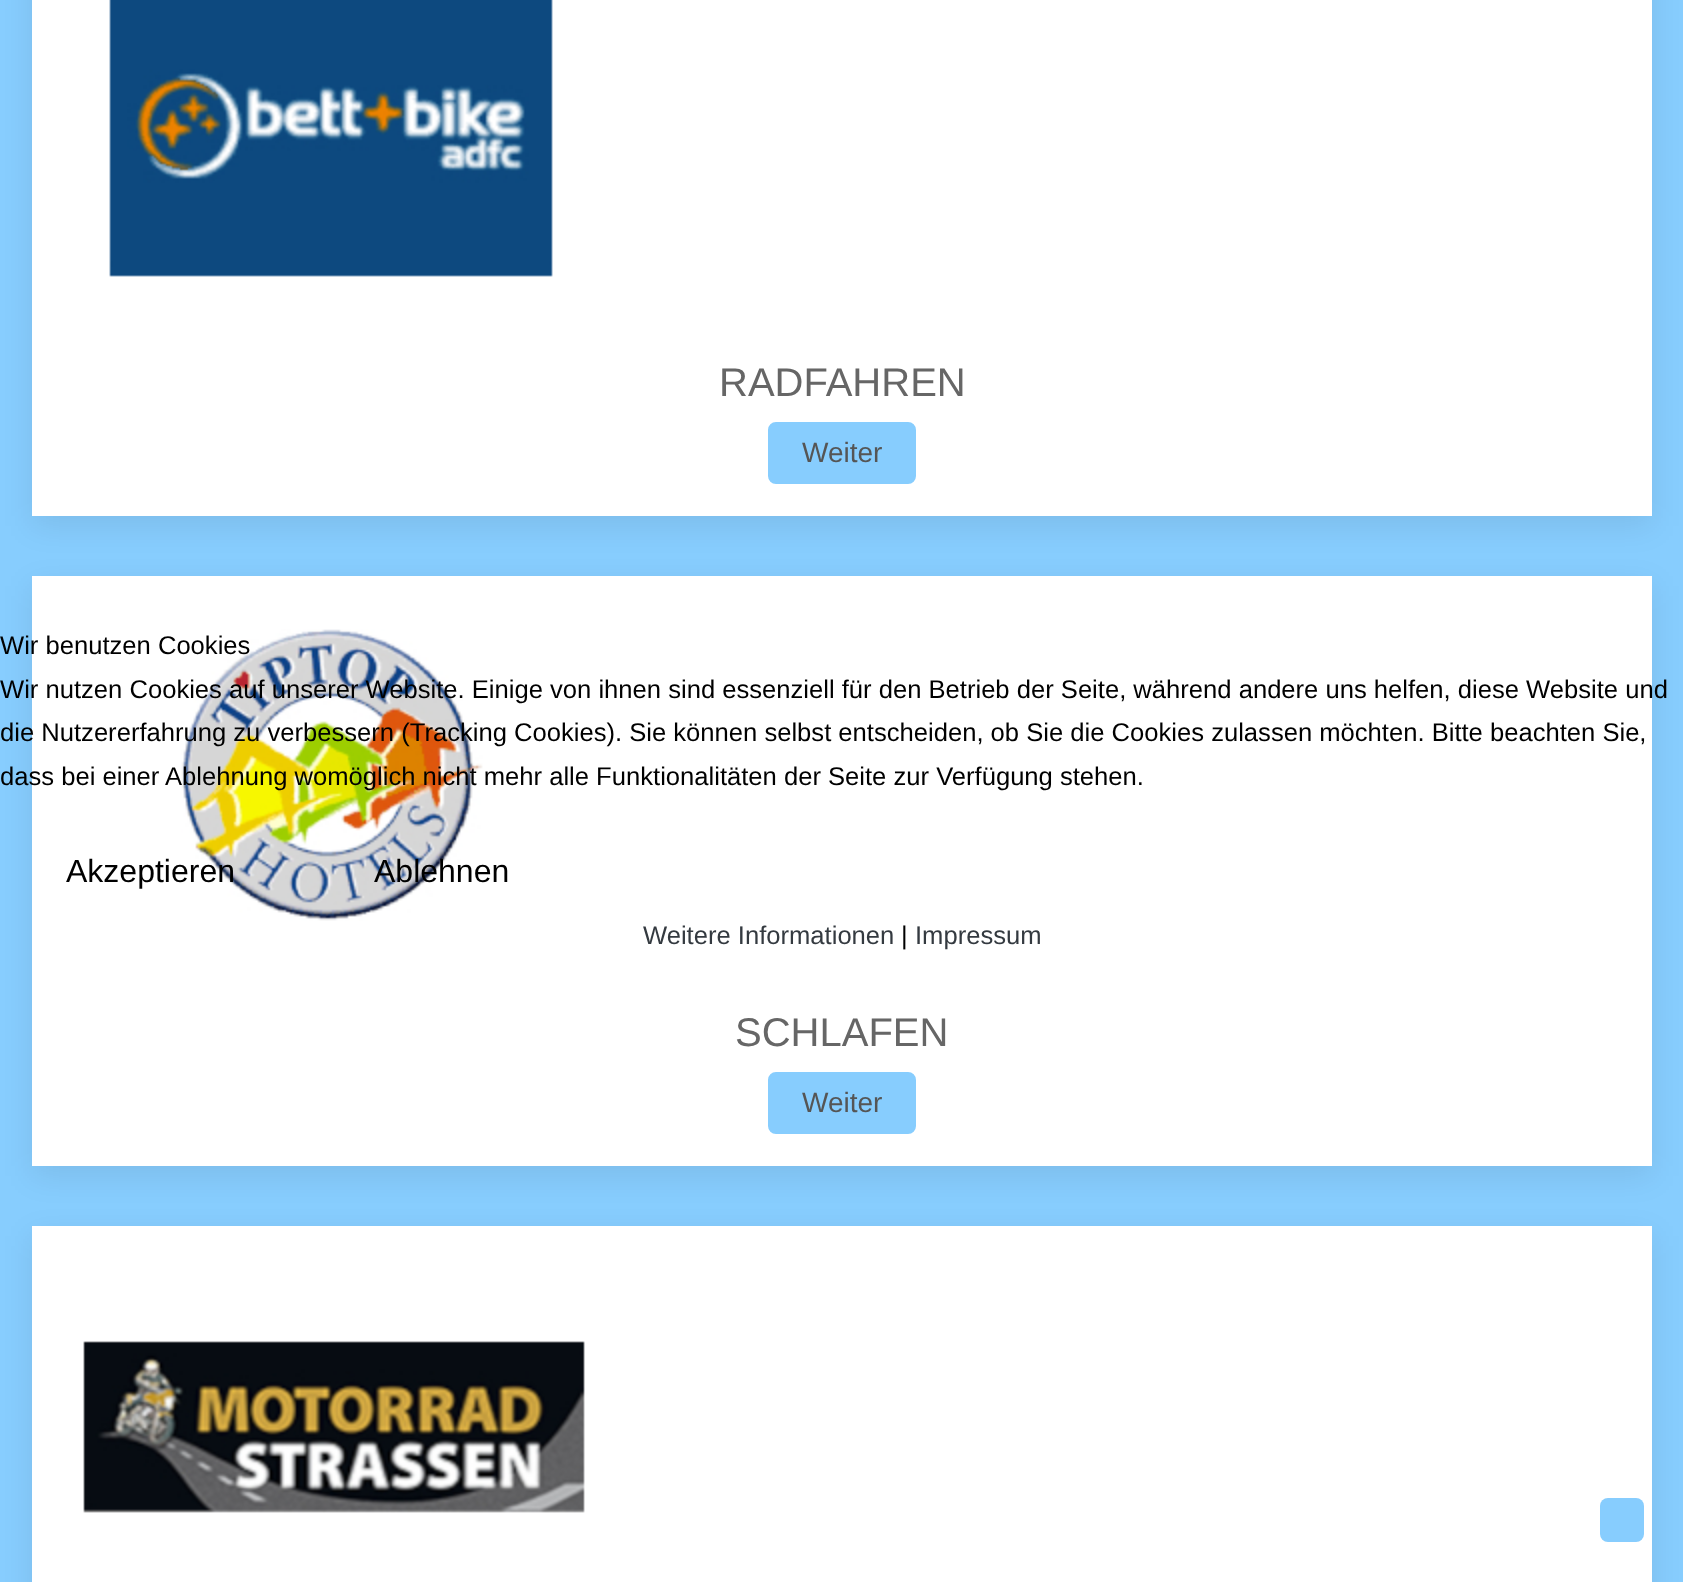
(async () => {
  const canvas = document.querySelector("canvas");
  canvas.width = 1683;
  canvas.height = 1582;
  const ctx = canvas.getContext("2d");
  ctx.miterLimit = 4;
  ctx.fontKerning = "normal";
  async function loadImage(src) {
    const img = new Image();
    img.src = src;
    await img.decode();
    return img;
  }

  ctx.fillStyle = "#87cdfe";
  ctx.fillRect(0, 0, 1683, 1582);
  ctx.fillStyle = "rgba(0, 0, 0, 0.08)";
  ctx.filter = "blur(15px)";
  ctx.beginPath();
  ctx.rect(32, -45, 1620, 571);
  ctx.fill();
  ctx.filter = "none";
  ctx.fillStyle = "#ffffff";
  ctx.fillRect(32, 0, 1620, 516);
  ctx.drawImage(await loadImage("img/1.png"), 109, 0, 444, 277);
  ctx.fillStyle = "#87cdfe";
  ctx.beginPath();
  ctx.roundRect(769, 423, 146, 60, 7);
  ctx.fill();
  ctx.strokeStyle = "#87cdfe";
  ctx.lineWidth = 2;
  ctx.stroke();
  ctx.fillStyle = "rgba(0, 0, 0, 0.08)";
  ctx.filter = "blur(15px)";
  ctx.beginPath();
  ctx.rect(32, 586, 1620, 590);
  ctx.fill();
  ctx.filter = "none";
  ctx.fillStyle = "#ffffff";
  ctx.fillRect(32, 576, 1620, 590);
  ctx.drawImage(await loadImage("img/2.png"), 181, 629, 302, 292);
  ctx.fillStyle = "#87cdfe";
  ctx.beginPath();
  ctx.roundRect(769, 1073, 146, 60, 7);
  ctx.fill();
  ctx.stroke();
  ctx.fillStyle = "rgba(0, 0, 0, 0.08)";
  ctx.filter = "blur(15px)";
  ctx.beginPath();
  ctx.rect(32, 1236, 1620, 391);
  ctx.fill();
  ctx.filter = "none";
  ctx.fillStyle = "#ffffff";
  ctx.fillRect(32, 1226, 1620, 356);
  ctx.drawImage(await loadImage("img/3.png"), 83, 1341, 502, 172);
  ctx.fillStyle = "#87cdfe";
  ctx.beginPath();
  ctx.roundRect(1600, 1498, 44, 44, 8);
  ctx.fill();
  ctx.font = "40px Liberation Sans";
  ctx.fillStyle = "#666666";
  ctx.fillText("RADFAHREN", 719, 396);
  ctx.font = "28px Liberation Sans";
  ctx.fillStyle = "#555555";
  ctx.fillText("Weiter", 802, 462);
  ctx.font = "40px Liberation Sans";
  ctx.fillStyle = "#666666";
  ctx.fillText("SCHLAFEN", 735, 1046);
  ctx.font = "28px Liberation Sans";
  ctx.fillStyle = "#555555";
  ctx.fillText("Weiter", 802, 1112);
  ctx.font = "25.6px Liberation Sans";
  ctx.fillStyle = "#000000";
  for (const [text, x, y] of [
    ["Wir benutzen Cookies", 0, 654],
    ["Wir nutzen Cookies auf unserer Website. Einige von ihnen sind essenziell für den Betrieb der Seite, während andere uns helfen, diese Website und", 0, 698],
    ["die Nutzererfahrung zu verbessern (Tracking Cookies). Sie können selbst entscheiden, ob Sie die Cookies zulassen möchten. Bitte beachten Sie,", 0, 741],
    ["dass bei einer Ablehnung womöglich nicht mehr alle Funktionalitäten der Seite zur Verfügung stehen.", 0, 785],
  ]) {
    ctx.fillText(text, x, y);
  }
  ctx.font = "32px Liberation Sans";
  ctx.fillText("Akzeptieren", 66, 882);
  ctx.fillText("Ablehnen", 374, 882);
  ctx.font = "25.6px Liberation Sans";
  ctx.fillStyle = "#343a40";
  ctx.fillText("Weitere Informationen", 643, 944);
  ctx.fillStyle = "#000000";
  ctx.fillText("|", 901, 944);
  ctx.fillStyle = "#343a40";
  ctx.fillText("Impressum", 915, 944);
})();
